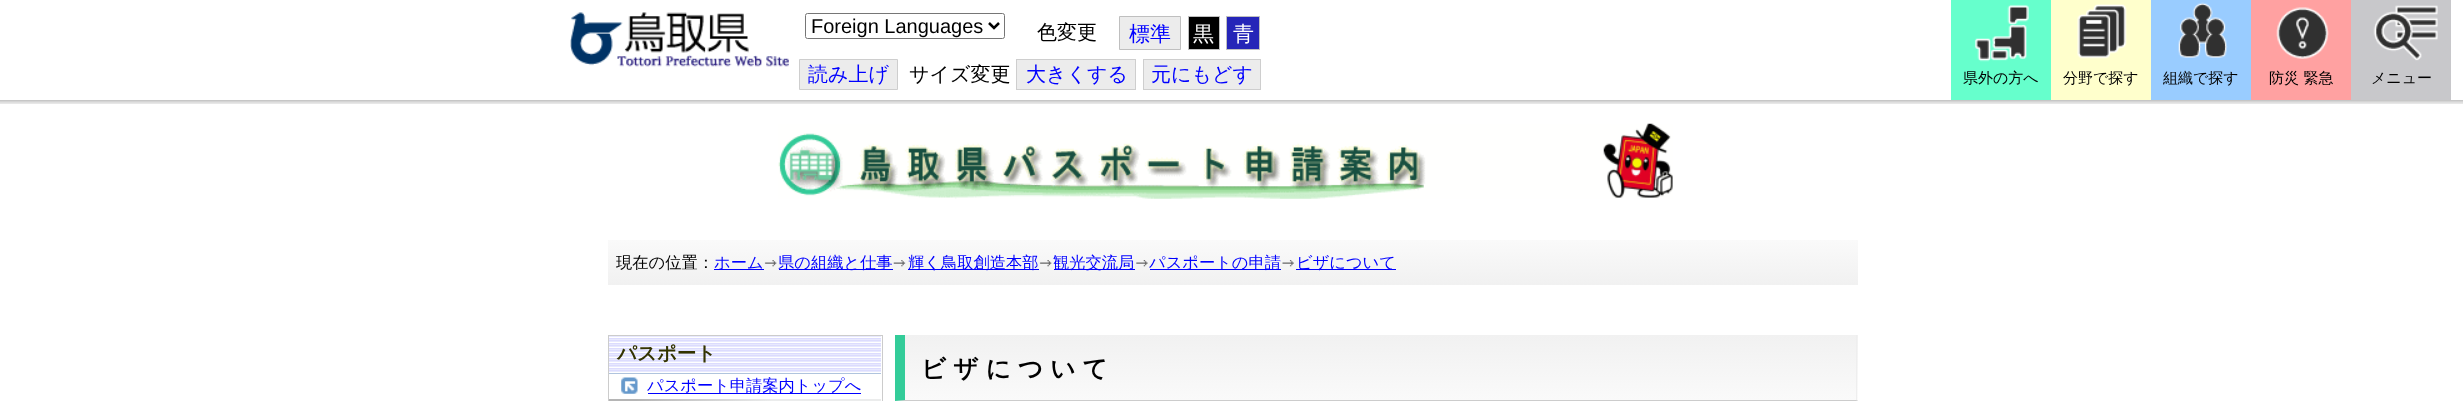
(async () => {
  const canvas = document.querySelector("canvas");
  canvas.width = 2463;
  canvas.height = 401;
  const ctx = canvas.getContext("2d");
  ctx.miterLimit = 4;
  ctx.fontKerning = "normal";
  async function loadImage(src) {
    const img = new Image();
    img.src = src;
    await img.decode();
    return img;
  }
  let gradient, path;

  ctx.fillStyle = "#ffffff";
  ctx.fillRect(0, 0, 2463, 401);
  ctx.save();
  ctx.beginPath();
  ctx.rect(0, 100, 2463, 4);
  ctx.clip();
  ctx.fillStyle = "rgba(0, 0, 0, 0.1)";
  ctx.filter = "blur(3px)";
  ctx.beginPath();
  ctx.rect(-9, 1, 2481, 100);
  ctx.fill();
  ctx.filter = "none";
  ctx.filter = "blur(3px)";
  ctx.beginPath();
  ctx.rect(-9, 1, 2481, 100);
  ctx.fill();
  ctx.filter = "none";
  ctx.filter = "blur(3px)";
  ctx.beginPath();
  ctx.rect(-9, 1, 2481, 100);
  ctx.fill();
  ctx.filter = "none";
  ctx.filter = "blur(3px)";
  ctx.beginPath();
  ctx.rect(-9, 1, 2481, 100);
  ctx.fill();
  ctx.filter = "none";
  ctx.restore();
  ctx.drawImage(await loadImage("img/1.png"), 570, 12, 219, 55);
  ctx.beginPath();
  ctx.roundRect(805.5, 13.5, 199, 25, 2);
  ctx.strokeStyle = "#767676";
  ctx.stroke();
  path = new Path2D("M989 23L994 28L999 23");
  ctx.strokeStyle = "#000000";
  ctx.lineWidth = 2.5;
  ctx.stroke(path);
  ctx.fillStyle = "#ececec";
  ctx.beginPath();
  ctx.rect(1119.5, 16.5, 61, 33);
  ctx.fill();
  ctx.strokeStyle = "#bfbfbf";
  ctx.lineWidth = 1;
  ctx.stroke();
  ctx.fillStyle = "#000000";
  ctx.beginPath();
  ctx.rect(1188.5, 16.5, 31, 33);
  ctx.fill();
  ctx.stroke();
  ctx.fillStyle = "#2525b8";
  ctx.beginPath();
  ctx.rect(1226.5, 16.5, 33, 33);
  ctx.fill();
  ctx.stroke();
  ctx.fillStyle = "#ececec";
  ctx.beginPath();
  ctx.rect(799.5, 59.5, 98, 30);
  ctx.fill();
  ctx.strokeStyle = "#cecece";
  ctx.stroke();
  for (const [x, y, w, h, color] of [
    [1017, 60, 118, 29, "#ececec"],
    [1016, 59, 120, 1, "#cecece"],
    [1016, 89, 29, 1, "#cecece"],
    [1016, 59, 1, 31, "#cecece"],
    [1135, 59, 1, 31, "#cecece"],
    [1045, 89, 91, 1, "#cecece"],
    [1144, 60, 116, 29, "#ececec"],
    [1143, 59, 118, 1, "#cecece"],
    [1143, 89, 28, 1, "#cecece"],
    [1143, 59, 1, 31, "#cecece"],
    [1260, 59, 1, 31, "#cecece"],
    [1171, 89, 90, 1, "#cecece"],
    [1951, 0, 100, 100, "#66ffcc"],
  ]) {
    ctx.fillStyle = color;
    ctx.fillRect(x, y, w, h);
  }
  ctx.drawImage(await loadImage("img/2.png"), 1974, 4, 55, 58);
  ctx.fillStyle = "#ffffcc";
  ctx.fillRect(2051, 0, 100, 100);
  ctx.drawImage(await loadImage("img/3.png"), 2077, 4, 50, 55);
  ctx.fillStyle = "#99ccff";
  ctx.fillRect(2151, 0, 100, 100);
  ctx.drawImage(await loadImage("img/4.png"), 2178, 2, 50, 56);
  ctx.fillStyle = "#ffa1a1";
  ctx.fillRect(2251, 0, 100, 100);
  ctx.drawImage(await loadImage("img/5.png"), 2276, 7, 53, 52);
  ctx.fillStyle = "#c8c8cb";
  ctx.fillRect(2351, 0, 100, 100);
  ctx.drawImage(await loadImage("img/6.png"), 2373, 5, 65, 56);
  ctx.drawImage(await loadImage("img/7.png"), 778, 123, 895, 76);
  gradient = ctx.createLinearGradient(1233, 240, 1233, 285);
  gradient.addColorStop(0, "#fafafa");
  gradient.addColorStop(1, "#f1f1f1");
  ctx.fillStyle = gradient;
  ctx.fillRect(608, 240, 1250, 45);
  ctx.fillStyle = "#0000ff";
  ctx.fillRect(714, 269, 50, 1);
  ctx.drawImage(await loadImage("img/8.png"), 764, 260, 13, 7);
  ctx.fillRect(779, 269, 114, 1);
  ctx.drawImage(await loadImage("img/9.png"), 893, 260, 13, 7);
  ctx.fillRect(908, 269, 131, 1);
  ctx.drawImage(await loadImage("img/8.png"), 1039, 260, 13, 7);
  ctx.fillRect(1054, 269, 81, 1);
  ctx.drawImage(await loadImage("img/10.png"), 1136, 260, 12, 7);
  ctx.fillRect(1150, 269, 131, 1);
  ctx.drawImage(await loadImage("img/11.png"), 1282, 260, 12, 7);
  ctx.fillRect(1296, 269, 100, 1);
  ctx.strokeStyle = "#cccccc";
  ctx.strokeRect(608.5, 335.5, 274, 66);
  ctx.drawImage(await loadImage("img/12.png"), 609, 336, 272, 36);
  ctx.fillStyle = "#b0c4de";
  ctx.fillRect(609, 373, 272, 1);
  ctx.drawImage(await loadImage("img/13.png"), 621, 377, 17, 17);
  ctx.fillStyle = "#0000ff";
  ctx.fillRect(648, 393, 213, 1);
  gradient = ctx.createLinearGradient(609, 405, 881, 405);
  gradient.addColorStop(0, "#b5b5b5");
  gradient.addColorStop(0.1, "#b5b5b5");
  gradient.addColorStop(0.6, "#ebecec");
  gradient.addColorStop(1, "#ebecec");
  ctx.fillStyle = gradient;
  ctx.fillRect(609, 399, 272, 2);
  gradient = ctx.createLinearGradient(1381, 335, 1381, 400);
  gradient.addColorStop(0, "#f1f1f1");
  gradient.addColorStop(1, "#fafafa");
  ctx.fillStyle = gradient;
  ctx.fillRect(905, 335, 953, 65);
  gradient = ctx.createLinearGradient(1381, 400, 1381, 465);
  gradient.addColorStop(0, "#f1f1f1");
  gradient.addColorStop(1, "#fafafa");
  ctx.fillStyle = gradient;
  ctx.fillRect(895, 400, 963, 1);
  ctx.fillStyle = "#eeeeee";
  ctx.fillRect(1856, 335, 1, 66);
  ctx.fillStyle = "#cccccc";
  path = new Path2D("M1858 401H895L905 400H1856Z");
  ctx.fill(path);
  ctx.fillStyle = "#33cc99";
  path = new Path2D("M895 401V335H905V400Z");
  ctx.fill(path);
  ctx.font = "20px Liberation Sans";
  ctx.fillStyle = "#000000";
  ctx.fillText("Foreign Languages", 811, 33);
  ctx.font = "500 20px WenQuanYi Zen Hei";
  ctx.fillText("色変更", 1037, 39);
  ctx.font = "500 21px WenQuanYi Zen Hei";
  ctx.fillStyle = "#0000ff";
  ctx.fillText("標準", 1129, 41);
  ctx.fillStyle = "#ffffff";
  ctx.fillText("黒", 1193, 41);
  ctx.fillText("青", 1233, 41);
  ctx.font = "500 20px WenQuanYi Zen Hei";
  ctx.fillStyle = "#0000ff";
  ctx.fillText("読み上げ", 808, 81);
  ctx.fillStyle = "#000000";
  ctx.fillText("サイズ変更", 909, 81);
  ctx.fillStyle = "#0000ff";
  ctx.fillText("大きくする", 1026, 81);
  ctx.fillText("元にもどす", 1151, 81);
  ctx.font = "500 15px WenQuanYi Zen Hei";
  ctx.fillStyle = "#000000";
  for (const [text, x, y] of [
    ["県外の方へ", 1963, 83],
    ["分野で探す", 2063, 83],
    ["組織で探す", 2163, 83],
    ["防災 緊急", 2269, 83],
    ["メニュー", 2371, 83],
  ]) {
    ctx.fillText(text, x, y);
  }
  ctx.font = "500 16.25px WenQuanYi Zen Hei";
  ctx.fillText("現在の位置：", 616, 268);
  ctx.fillStyle = "#0000ff";
  for (const [text, x, y] of [
    ["ホーム", 714, 268],
    ["県の組織と仕事", 778, 268],
    ["輝く鳥取創造本部", 908, 268],
    ["観光交流局", 1053, 268],
    ["パスポートの申請", 1149, 268],
    ["ビザについて", 1296, 268],
  ]) {
    ctx.fillText(text, x, y);
  }
  ctx.font = "bold 19.5px WenQuanYi Zen Hei";
  ctx.fillStyle = "#333300";
  ctx.fillText("パスポート", 617, 360);
  ctx.font = "500 16.25px WenQuanYi Zen Hei";
  ctx.fillStyle = "#0000ff";
  ctx.fillText("パスポート申請案内トップへ", 647, 391);
  ctx.letterSpacing = "7.25px";
  ctx.font = "bold 24.5px WenQuanYi Zen Hei";
  ctx.fillStyle = "#000000";
  ctx.fillText("ビザについて", 921, 377);
})();
